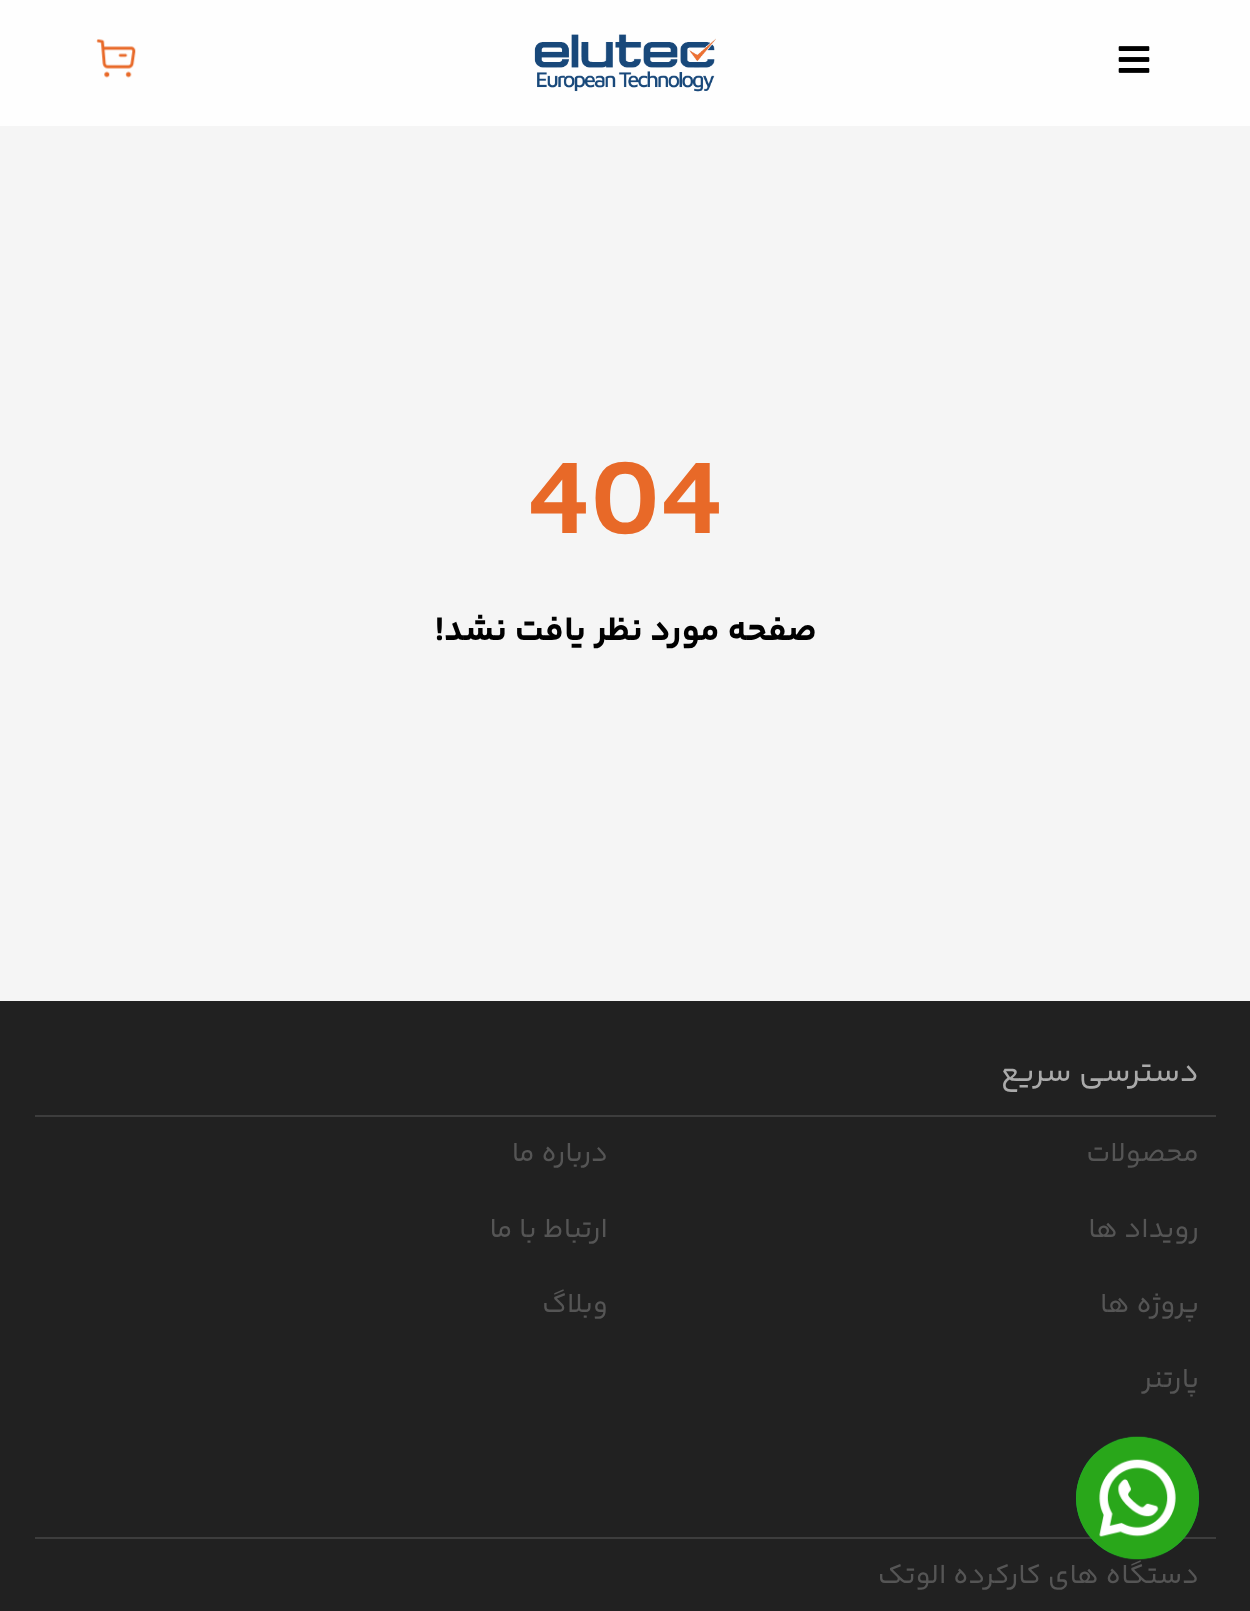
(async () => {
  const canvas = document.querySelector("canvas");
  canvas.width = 1250;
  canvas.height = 1611;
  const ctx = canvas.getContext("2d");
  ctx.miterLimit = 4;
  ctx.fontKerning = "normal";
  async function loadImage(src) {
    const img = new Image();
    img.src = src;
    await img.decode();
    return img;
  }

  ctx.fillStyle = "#f5f5f5";
  ctx.fillRect(0, 0, 1250, 1611);
  ctx.fillStyle = "#fefefe";
  ctx.fillRect(0, 0, 1250, 126);
  ctx.drawImage(await loadImage("img/1.png"), 1118, 46, 32, 27);
  ctx.drawImage(await loadImage("img/2.png"), 534, 34, 182, 58);
  ctx.drawImage(await loadImage("img/3.png"), 96, 39, 40, 39);
  for (const [x, y, w, h, color] of [
    [0, 1001, 1250, 610, "#212121"],
    [35, 1115, 1181, 2, "#3d3d3d"],
    [35, 1537, 1181, 2, "#3d3d3d"],
  ]) {
    ctx.fillStyle = color;
    ctx.fillRect(x, y, w, h);
  }
  ctx.fillStyle = "#1ab744";
  ctx.beginPath();
  ctx.roundRect(1076, 1437, 123, 122, 61);
  ctx.fill();
  ctx.drawImage(await loadImage("img/4.png"), 1076, 1436, 123, 124);
  ctx.font = "600 105px Maven Pro";
  ctx.fillStyle = "#e86928";
  ctx.fillText("404", 527, 533);
  ctx.direction = "rtl";
  ctx.font = "bold 35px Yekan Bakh";
  ctx.fillStyle = "#000000";
  ctx.fillText("صفحه مورد نظر یافت نشد!", 817, 640);
  ctx.font = "31.5px Yekan Bakh";
  ctx.fillStyle = "#aaaaaa";
  ctx.fillText("دسترسی سریع", 1199, 1081);
  ctx.font = "28px Yekan Bakh";
  ctx.fillStyle = "#555555";
  for (const [text, x, y] of [
    ["محصولات", 1199, 1161],
    ["رویداد ها", 1199, 1237],
    ["پروژه ها", 1199, 1312],
    ["پارتنر", 1199, 1387],
    ["درباره ما", 608, 1161],
    ["ارتباط با ما", 608, 1237],
    ["وبلاگ", 608, 1312],
    ["دستگاه های کارکرده الوتک", 1199, 1583],
  ]) {
    ctx.fillText(text, x, y);
  }
})();
